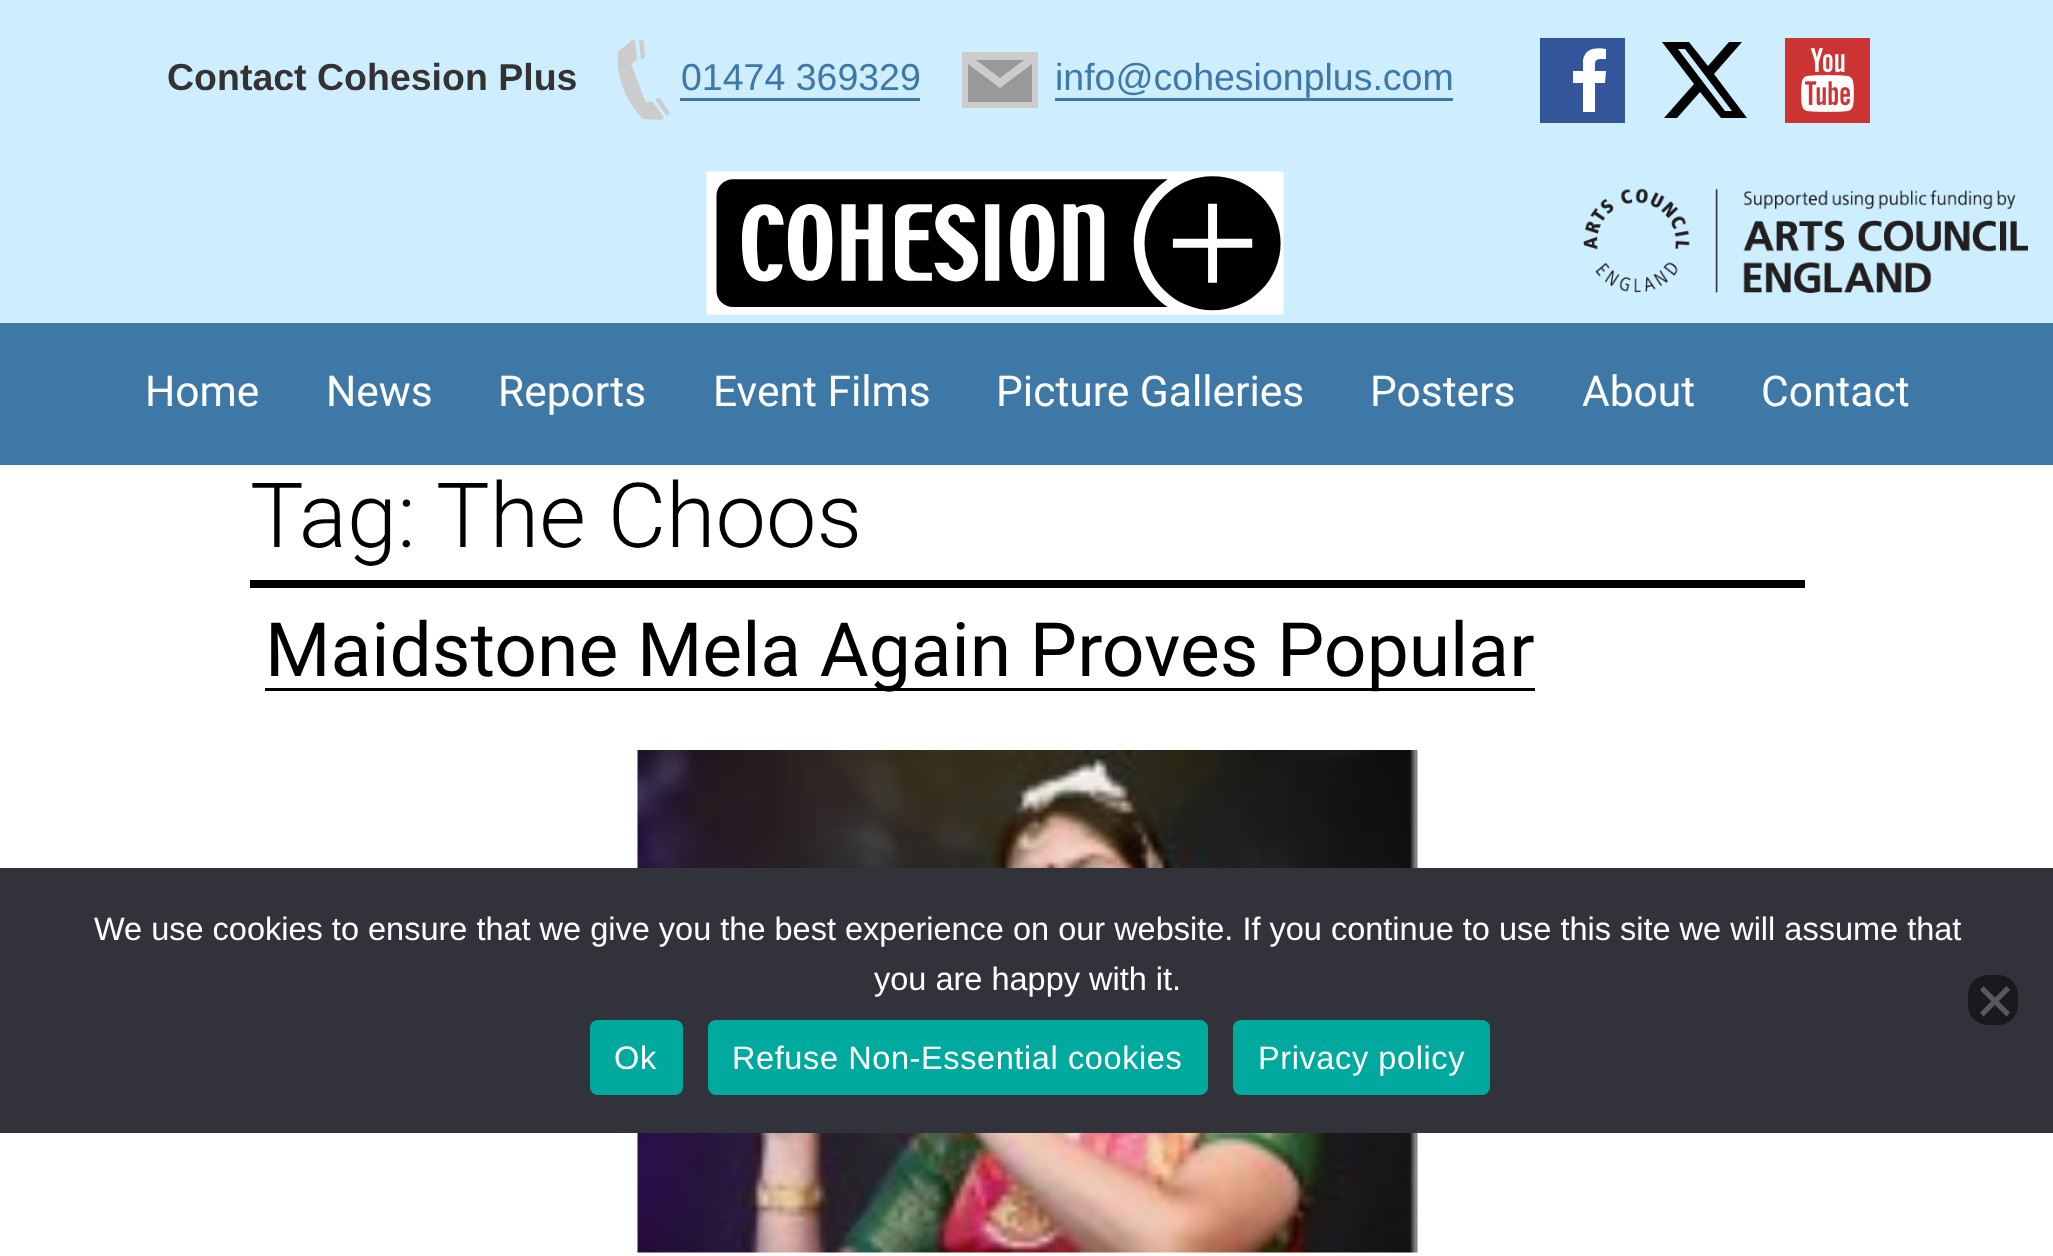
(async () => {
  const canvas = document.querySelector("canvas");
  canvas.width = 2053;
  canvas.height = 1256;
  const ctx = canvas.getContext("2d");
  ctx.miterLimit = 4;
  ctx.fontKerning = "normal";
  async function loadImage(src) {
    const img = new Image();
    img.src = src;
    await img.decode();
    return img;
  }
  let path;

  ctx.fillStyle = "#ffffff";
  ctx.fillRect(0, 0, 2053, 1256);
  ctx.fillStyle = "#ceedff";
  ctx.fillRect(0, 0, 2053, 323);
  ctx.fillStyle = "#335599";
  ctx.fillRect(1540, 38, 85, 85);
  ctx.fillStyle = "#000000";
  path = new Path2D("M1729 42H1742L1714 74L1747 118H1721L1700 92L1677 118H1664L1694 84L1662 42H1689L1708 66ZM1725 111H1732L1685 49H1678Z");
  ctx.fill(path);
  ctx.drawImage(await loadImage("img/1.png"), 1785, 38, 85, 85);
  ctx.fillStyle = "#cccccc";
  path = new Path2D("M618 52C618 52 613 88 643 119L661 120L664 118L652 101L646 103L631 64L637 60L635 40H632Z");
  ctx.fill(path);
  path = new Path2D("M639 40L641 59.5L645 58L643.5 40.5Z");
  ctx.fill(path);
  path = new Path2D("M655 99.5L667 116L670 113L659.5 97.5Z");
  ctx.fill(path);
  ctx.fillStyle = "#3e78a7";
  ctx.fillRect(680, 98, 240, 3);
  ctx.fillStyle = "#999999";
  ctx.fillRect(968, 60, 64, 42);
  ctx.fillStyle = "#cccccc";
  path = new Path2D("M962 52V108H1038V52ZM1024 60L1000 78L976 60ZM1032 102H968V64L1000 88L1032 64Z");
  ctx.fill(path);
  ctx.fillStyle = "#3e78a7";
  ctx.fillRect(1055, 98, 398, 3);
  ctx.fillStyle = "#ffffff";
  path = new Path2D("M1595 112V83H1605L1606 71H1595C1595 59 1594 59 1606 59V49C1597 47 1585 48 1583 60V71H1573V83H1583V112Z");
  ctx.fill(path);
  ctx.drawImage(await loadImage("img/2.png"), 706, 171, 1322, 144);
  for (const [x, y, w, h, color] of [
    [0, 323, 2053, 142, "#3e78a7"],
    [250, 580, 1555, 8, "#000000"],
    [265, 688, 1270, 3, "#000000"],
  ]) {
    ctx.fillStyle = color;
    ctx.fillRect(x, y, w, h);
  }
  ctx.drawImage(await loadImage("img/3.png"), 637, 750, 781, 503);
  ctx.fillStyle = "#32323a";
  ctx.fillRect(0, 868, 2053, 265);
  ctx.fillStyle = "#19191d";
  ctx.beginPath();
  ctx.roundRect(1968, 975, 50, 50, 20);
  ctx.fill();
  ctx.fillStyle = "#59595d";
  path = new Path2D("M2006.5 986L2010 990L1983.5 1016.5L1980 1012.5Z");
  ctx.fill(path);
  path = new Path2D("M1980 990L1983.5 986L2010 1012.5L2006.5 1016.5Z");
  ctx.fill(path);
  ctx.fillStyle = "#00a99d";
  ctx.beginPath();
  ctx.roundRect(590, 1020, 93, 75, 8);
  ctx.fill();
  ctx.beginPath();
  ctx.roundRect(708, 1020, 500, 75, 8);
  ctx.fill();
  ctx.beginPath();
  ctx.roundRect(1233, 1020, 257, 75, 8);
  ctx.fill();
  ctx.font = "bold 37.5px Liberation Sans";
  ctx.fillStyle = "#333333";
  ctx.fillText("Contact Cohesion Plus", 167, 90);
  ctx.font = "37.5px Liberation Sans";
  ctx.fillStyle = "#3e78a7";
  ctx.fillText("01474 369329", 681, 90);
  ctx.fillText("info@cohesionplus.com", 1055, 90);
  ctx.font = "42.5px Roboto";
  ctx.fillStyle = "#ffffff";
  for (const [text, x, y] of [
    ["Home", 145, 406],
    ["News", 326, 406],
    ["Reports", 498, 406],
    ["Event Films", 713, 406],
    ["Picture Galleries", 996, 406],
    ["Posters", 1370, 406],
    ["About", 1582, 406],
    ["Contact", 1761, 406],
  ]) {
    ctx.fillText(text, x, y);
  }
  ctx.font = "300 90px Roboto";
  ctx.fillStyle = "#000000";
  ctx.fillText("Tag:", 250, 547);
  ctx.fillText("The Choos", 436, 547);
  ctx.font = "75px Roboto";
  ctx.fillText("Maidstone Mela Again Proves Popular", 265, 676);
  ctx.font = "32.5px Liberation Sans";
  ctx.fillStyle = "#ffffff";
  ctx.fillText("We use cookies to ensure that we give you the best experience on our website. If you continue to use this site we will assume that", 94, 940);
  ctx.fillText("you are happy with it.", 874, 990);
  ctx.letterSpacing = "0.6px";
  for (const [text, x, y] of [
    ["Ok", 614, 1069],
    ["Refuse Non-Essential cookies", 732, 1069],
    ["Privacy policy", 1258, 1069],
  ]) {
    ctx.fillText(text, x, y);
  }
})();
